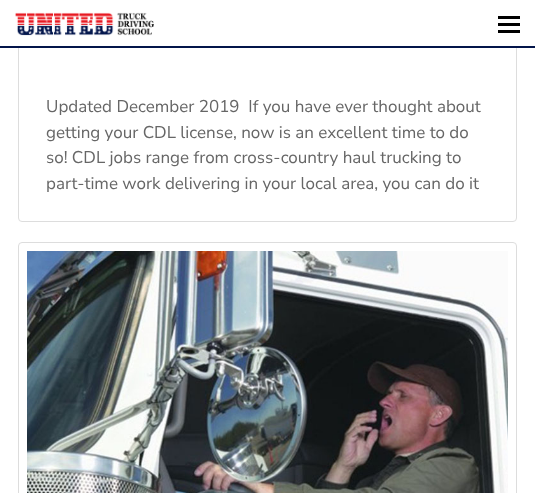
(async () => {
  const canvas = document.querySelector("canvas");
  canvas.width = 535;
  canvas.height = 493;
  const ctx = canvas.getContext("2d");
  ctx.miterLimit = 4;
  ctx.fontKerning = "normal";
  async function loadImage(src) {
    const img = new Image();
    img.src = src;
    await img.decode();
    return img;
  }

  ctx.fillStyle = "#ffffff";
  ctx.fillRect(0, 0, 535, 493);
  ctx.beginPath();
  ctx.roundRect(18.5, -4.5, 498, 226, 3.5);
  ctx.strokeStyle = "#dddddd";
  ctx.stroke();
  ctx.fillRect(18, 0, 499, 46);
  ctx.drawImage(await loadImage("img/1.png"), 15, 12, 139, 24);
  for (const [x, y, w, h, color] of [
    [498, 23, 22, 3, "#000000"],
    [498, 16, 22, 3, "#000000"],
    [498, 30, 22, 3, "#000000"],
    [0, 46, 535, 2, "#03154a"],
  ]) {
    ctx.fillStyle = color;
    ctx.fillRect(x, y, w, h);
  }
  ctx.beginPath();
  ctx.roundRect(18.5, 242.5, 498, 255, 3.5);
  ctx.stroke();
  ctx.drawImage(await loadImage("img/2.png"), 27, 251, 481, 242);
  ctx.font = "17px Nunito Sans";
  ctx.fillStyle = "#666666";
  for (const [text, x, y] of [
    ["Updated December 2019  If you have ever thought about", 46, 112],
    ["getting your CDL license, now is an excellent time to do", 46, 138],
    ["so! CDL jobs range from cross-country haul trucking to", 46, 163],
    ["part-time work delivering in your local area, you can do it", 46, 189],
  ]) {
    ctx.fillText(text, x, y);
  }
})();
